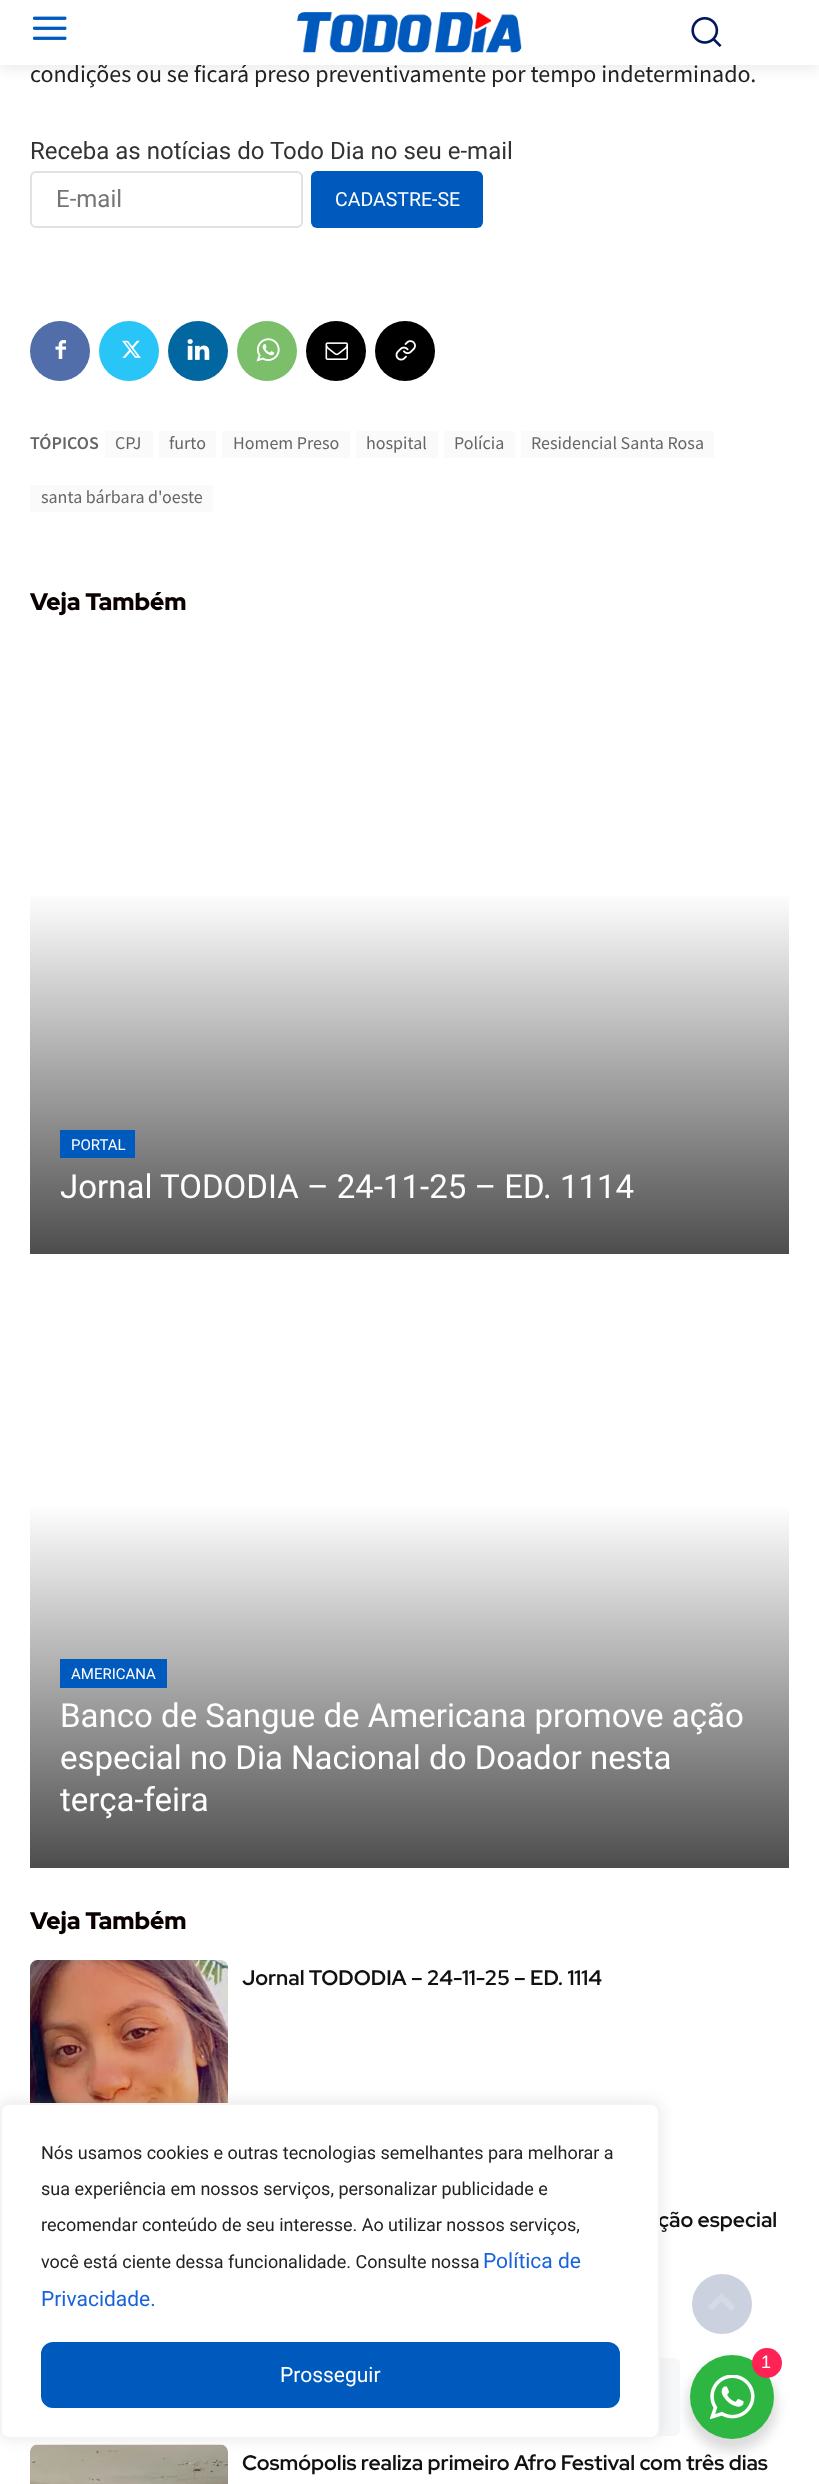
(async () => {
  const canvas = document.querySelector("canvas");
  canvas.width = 819;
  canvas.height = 2484;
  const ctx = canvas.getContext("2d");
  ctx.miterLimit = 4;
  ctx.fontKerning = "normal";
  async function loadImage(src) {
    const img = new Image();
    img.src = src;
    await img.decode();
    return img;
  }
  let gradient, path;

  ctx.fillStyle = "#ffffff";
  ctx.fillRect(0, 0, 819, 2484);
  ctx.drawImage(await loadImage("img/1.png"), 33, 16, 34, 24);
  ctx.drawImage(await loadImage("img/2.png"), 297, 12, 225, 41);
  ctx.drawImage(await loadImage("img/3.png"), 691, 17, 31, 30);
  ctx.beginPath();
  ctx.roundRect(31, 172, 271, 55, 5);
  ctx.strokeStyle = "#e1e1e1";
  ctx.lineWidth = 2;
  ctx.stroke();
  ctx.fillStyle = "#005abe";
  ctx.beginPath();
  ctx.roundRect(311, 171, 172, 57, 6);
  ctx.fill();
  ctx.fillStyle = "#516eab";
  ctx.beginPath();
  ctx.arc(60, 351, 30, 0, Math.PI * 2);
  ctx.fill();
  ctx.drawImage(await loadImage("img/4.png"), 55, 340, 11, 19);
  ctx.fillStyle = "#29c5f6";
  ctx.beginPath();
  ctx.arc(129, 351, 30, 0, Math.PI * 2);
  ctx.fill();
  ctx.drawImage(await loadImage("img/5.png"), 122, 340, 19, 18);
  ctx.fillStyle = "#0266a0";
  ctx.beginPath();
  ctx.arc(198, 351, 30, 0, Math.PI * 2);
  ctx.fill();
  ctx.drawImage(await loadImage("img/6.png"), 187, 339, 23, 21);
  ctx.fillStyle = "#7bbf6a";
  ctx.beginPath();
  ctx.arc(267, 351, 30, 0, Math.PI * 2);
  ctx.fill();
  ctx.drawImage(await loadImage("img/7.png"), 256, 338, 24, 24);
  ctx.fillStyle = "#000000";
  ctx.beginPath();
  ctx.arc(336, 351, 30, 0, Math.PI * 2);
  ctx.fill();
  ctx.drawImage(await loadImage("img/8.png"), 325, 342, 23, 18);
  ctx.beginPath();
  ctx.arc(405, 351, 30, 0, Math.PI * 2);
  ctx.fill();
  ctx.drawImage(await loadImage("img/9.png"), 395, 340, 21, 21);
  for (const [x, y, w, h, color] of [
    [105, 431, 48, 27, "#fafafa"],
    [159, 431, 57, 27, "#fafafa"],
    [222, 431, 128, 27, "#fafafa"],
    [356, 431, 82, 27, "#fafafa"],
    [444, 431, 71, 27, "#fafafa"],
    [521, 431, 193, 27, "#fafafa"],
    [30, 485, 183, 27, "#fafafa"],
  ]) {
    ctx.fillStyle = color;
    ctx.fillRect(x, y, w, h);
  }
  gradient = ctx.createLinearGradient(410, 1254, 410, 648);
  gradient.addColorStop(0, "#4d4d4d");
  gradient.addColorStop(0.6, "#ffffff");
  gradient.addColorStop(1, "#ffffff");
  ctx.fillStyle = gradient;
  ctx.fillRect(30, 896, 759, 358);
  ctx.fillStyle = "#005abe";
  ctx.fillRect(60, 1130, 75, 28);
  gradient = ctx.createLinearGradient(410, 1868, 410, 1260);
  gradient.addColorStop(0, "#4d4d4d");
  gradient.addColorStop(0.6, "#ffffff");
  gradient.addColorStop(1, "#ffffff");
  ctx.fillStyle = gradient;
  ctx.fillRect(30, 1508, 759, 360);
  ctx.fillStyle = "#005abe";
  ctx.fillRect(60, 1659, 107, 29);
  ctx.drawImage(await loadImage("img/10.png"), 30, 1960, 198, 143);
  ctx.drawImage(await loadImage("img/11.png"), 30, 2444, 198, 40);
  ctx.fillStyle = "rgba(0, 0, 0, 0.14)";
  ctx.filter = "blur(6px)";
  ctx.beginPath();
  ctx.roundRect(687, 2361, 90, 90, 45);
  ctx.fill();
  ctx.filter = "none";
  ctx.fillStyle = "#f5f7f9";
  ctx.beginPath();
  ctx.roundRect(503, 2358, 177, 78, 6);
  ctx.fill();
  ctx.fillStyle = "rgba(172, 171, 171, 0.3)";
  ctx.filter = "blur(7.5px)";
  ctx.beginPath();
  ctx.roundRect(0, 2102, 660, 336, 9);
  ctx.fill();
  ctx.filter = "none";
  ctx.fillStyle = "#ccd1df";
  ctx.beginPath();
  ctx.arc(722, 2304, 30, 0, Math.PI * 2);
  ctx.fill();
  ctx.drawImage(await loadImage("img/12.png"), 708, 2293, 27, 17);
  ctx.fillStyle = "#2db742";
  ctx.beginPath();
  ctx.arc(732, 2397, 42, 0, Math.PI * 2);
  ctx.fill();
  ctx.fillStyle = "#ff2255";
  ctx.beginPath();
  ctx.arc(767, 2363, 15, 0, Math.PI * 2);
  ctx.fill();
  ctx.drawImage(await loadImage("img/13.png"), 710, 2375, 45, 45);
  ctx.font = "24px Source Sans Pro";
  ctx.fillStyle = "#222222";
  ctx.fillText("condições ou se ficará preso preventivamente por tempo indeterminado.", 30, 82);
  ctx.fillStyle = "#ffffff";
  ctx.fillRect(76, 63, 660, 2);
  ctx.save();
  path = new Path2D("M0 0H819V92H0ZM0 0H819V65H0Z");
  ctx.clip(path, "evenodd");
  ctx.fillStyle = "rgba(0, 0, 0, 0.09)";
  ctx.filter = "blur(7.5px)";
  ctx.beginPath();
  ctx.rect(0, 3, 819, 65);
  ctx.fill();
  ctx.filter = "none";
  ctx.restore();
  ctx.font = "24px Roboto";
  ctx.fillStyle = "#333333";
  ctx.fillText("Receba as notícias do Todo Dia no seu e-mail", 30, 159);
  ctx.fillStyle = "#757575";
  ctx.fillText("E-mail", 56, 207);
  ctx.font = "19.5px Roboto";
  ctx.fillStyle = "#ffffff";
  ctx.fillText("CADASTRE-SE", 335, 206);
  ctx.font = "600 18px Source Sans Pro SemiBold";
  ctx.fillStyle = "#666666";
  ctx.fillText("TÓPICOS", 30, 449);
  ctx.font = "18px Source Sans Pro";
  for (const [text, x, y] of [
    ["CPJ", 115, 449],
    ["furto", 169, 449],
    ["Homem Preso", 233, 449],
    ["hospital", 366, 449],
    ["Polícia", 454, 449],
    ["Residencial Santa Rosa", 531, 449],
    ["santa bárbara d'oeste", 41, 503],
  ]) {
    ctx.fillText(text, x, y);
  }
  ctx.font = "900 24px Red Hat Display";
  ctx.fillStyle = "#0a0000";
  ctx.fillText("Veja Também", 30, 610);
  ctx.font = "15px Roboto";
  ctx.fillStyle = "#ffffff";
  ctx.fillText("PORTAL", 71, 1150);
  ctx.font = "33px Roboto";
  ctx.fillText("Jornal TODODIA – 24-11-25 – ED. 1114", 60, 1198);
  ctx.font = "15px Roboto";
  ctx.fillText("AMERICANA", 71, 1679);
  ctx.font = "33px Roboto";
  for (const [text, x, y] of [
    ["Banco de Sangue de Americana promove ação", 60, 1727],
    ["especial no Dia Nacional do Doador nesta", 60, 1769],
    ["terça-feira", 60, 1811],
  ]) {
    ctx.fillText(text, x, y);
  }
  ctx.font = "900 24px Red Hat Display";
  ctx.fillStyle = "#0a0000";
  ctx.fillText("Veja Também", 30, 1929);
  ctx.font = "bold 21px Red Hat Display";
  ctx.fillStyle = "#111111";
  for (const [text, x, y] of [
    ["Jornal TODODIA – 24-11-25 – ED. 1114", 242, 1985],
    ["ção especial", 658, 2227],
    ["Cosmópolis realiza primeiro Afro Festival com três dias", 242, 2470],
  ]) {
    ctx.fillText(text, x, y);
  }
  ctx.fillStyle = "#ffffff";
  ctx.beginPath();
  ctx.roundRect(1, 2104, 658, 334, 8);
  ctx.fill();
  ctx.strokeStyle = "#f4f4f4";
  ctx.stroke();
  ctx.font = "18px Roboto";
  ctx.fillStyle = "#222222";
  for (const [text, x, y] of [
    ["Nós usamos cookies e outras tecnologias semelhantes para melhorar a", 41, 2159],
    ["sua experiência em nossos serviços, personalizar publicidade e", 41, 2195],
    ["recomendar conteúdo de seu interesse. Ao utilizar nossos serviços,", 41, 2231],
    ["você está ciente dessa funcionalidade. Consulte nossa", 41, 2268],
  ]) {
    ctx.fillText(text, x, y);
  }
  ctx.font = "21px Roboto";
  ctx.fillStyle = "#1863dc";
  ctx.fillText("Política de", 483, 2268);
  ctx.fillText("Privacidade.", 41, 2306);
  ctx.fillStyle = "#005abe";
  ctx.beginPath();
  ctx.roundRect(42.5, 2343.5, 576, 63, 10.5);
  ctx.fill();
  ctx.strokeStyle = "#005abe";
  ctx.lineWidth = 3;
  ctx.stroke();
  ctx.fillStyle = "#ffffff";
  ctx.fillText("Prosseguir", 280, 2382);
  ctx.font = "18px Liberation Sans";
  ctx.fillText("1", 761, 2368);
})();
